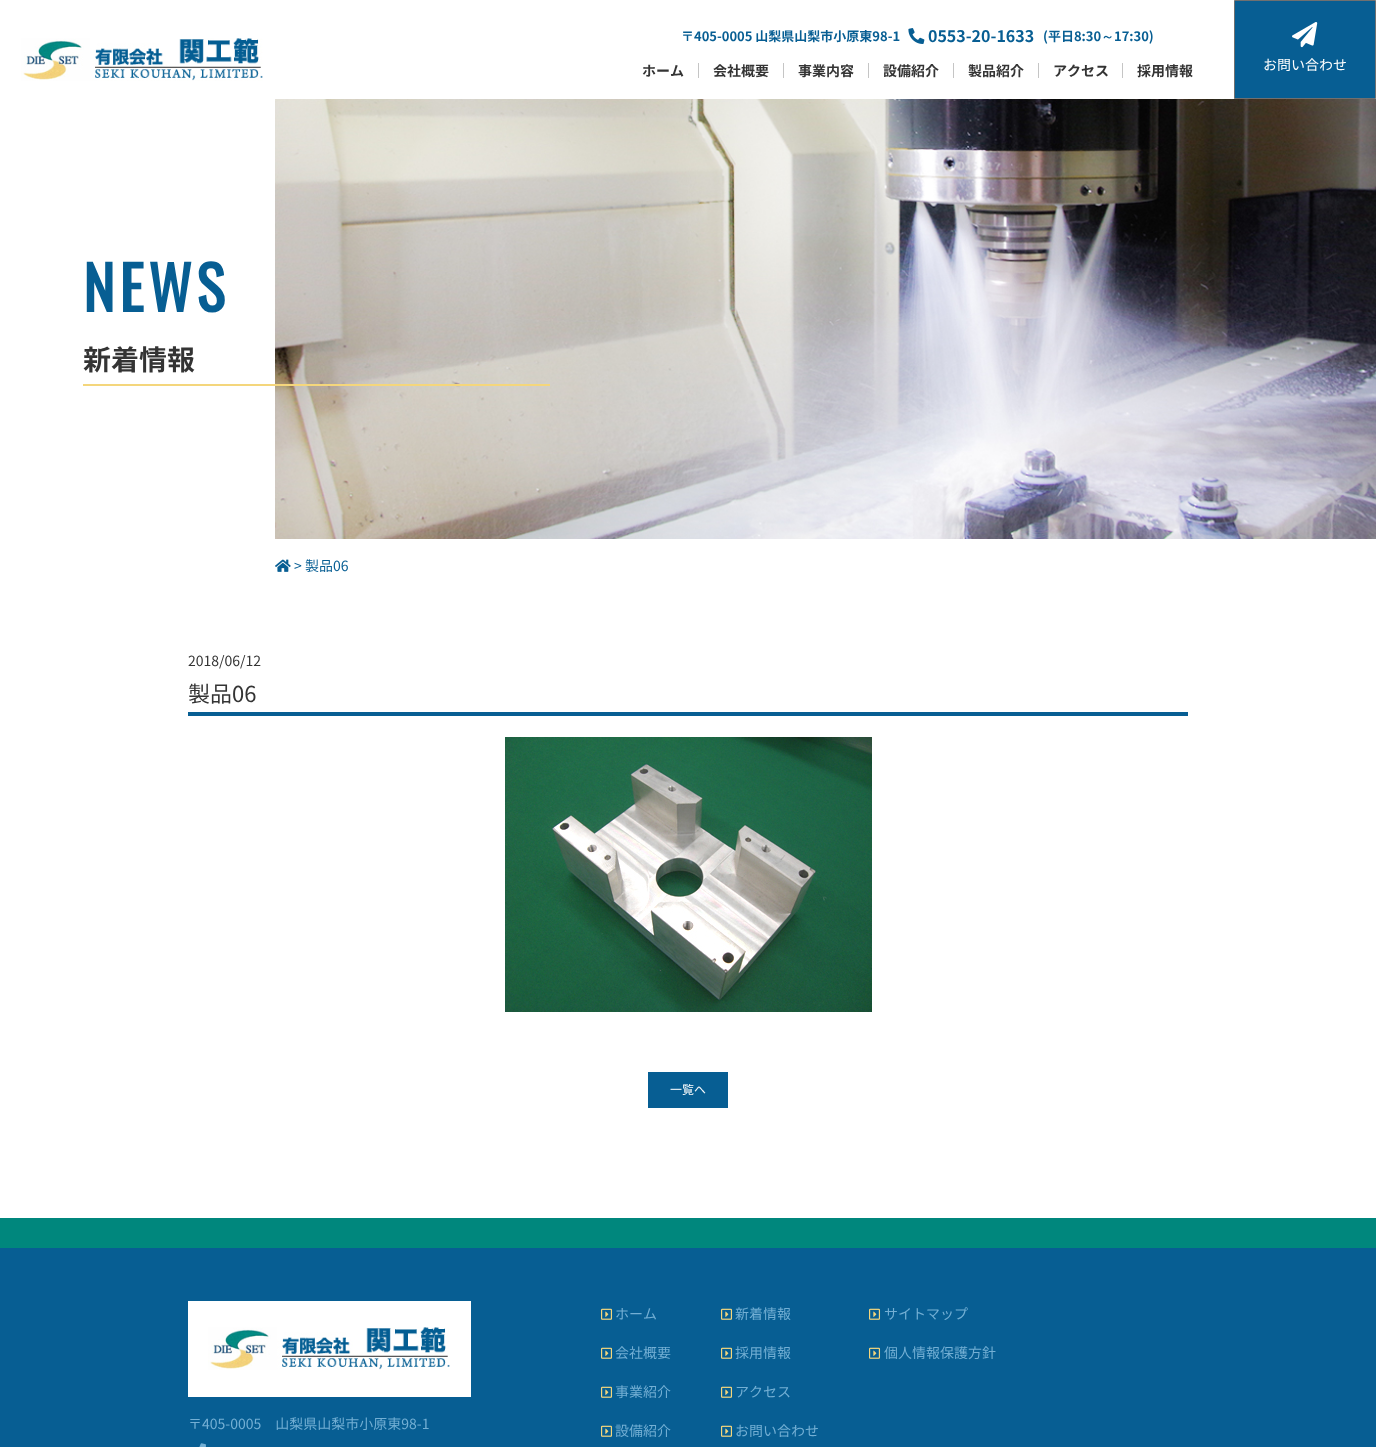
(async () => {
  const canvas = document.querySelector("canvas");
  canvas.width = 1376;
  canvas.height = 1447;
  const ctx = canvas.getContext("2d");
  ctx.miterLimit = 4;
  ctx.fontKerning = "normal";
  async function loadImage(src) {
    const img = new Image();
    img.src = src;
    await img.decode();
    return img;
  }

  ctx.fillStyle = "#ffffff";
  ctx.fillRect(0, 0, 1376, 1447);
  ctx.drawImage(await loadImage("img/1.png"), 21, 38, 242, 43);
  ctx.drawImage(await loadImage("img/2.png"), 908, 28, 17, 16);
  for (const [x, y, w, h, color] of [
    [698, 63, 1, 15, "#c5c5c5"],
    [783, 63, 1, 15, "#c5c5c5"],
    [868, 63, 1, 15, "#c5c5c5"],
    [953, 63, 1, 15, "#c5c5c5"],
    [1038, 63, 1, 15, "#c5c5c5"],
    [1122, 63, 1, 15, "#c5c5c5"],
  ]) {
    ctx.fillStyle = color;
    ctx.fillRect(x, y, w, h);
  }
  ctx.fillStyle = "#075e93";
  ctx.beginPath();
  ctx.rect(1234.5, 0.5, 141, 98);
  ctx.fill();
  ctx.strokeStyle = "#707070";
  ctx.stroke();
  ctx.drawImage(await loadImage("img/3.png"), 1292, 22, 26, 26);
  ctx.drawImage(await loadImage("img/4.png"), 275, 99, 1101, 440);
  ctx.fillStyle = "#f4d67c";
  ctx.fillRect(83, 384, 467, 2);
  ctx.drawImage(await loadImage("img/5.png"), 275, 559, 16, 13);
  ctx.fillStyle = "#075e93";
  ctx.fillRect(188, 712, 1000, 4);
  ctx.drawImage(await loadImage("img/6.png"), 505, 737, 367, 275);
  for (const [x, y, w, h, color] of [
    [648, 1072, 80, 36, "#075e93"],
    [0, 1248, 1376, 199, "#075e93"],
    [0, 1218, 1376, 30, "#00877d"],
    [188, 1301, 283, 96, "#ffffff"],
  ]) {
    ctx.fillStyle = color;
    ctx.fillRect(x, y, w, h);
  }
  ctx.drawImage(await loadImage("img/1.png"), 208, 1327, 242, 43);
  ctx.drawImage(await loadImage("img/7.png"), 199, 1443, 7, 4);
  ctx.drawImage(await loadImage("img/8.png"), 601, 1308, 12, 12);
  ctx.drawImage(await loadImage("img/8.png"), 601, 1347, 12, 12);
  ctx.drawImage(await loadImage("img/8.png"), 601, 1386, 12, 12);
  ctx.drawImage(await loadImage("img/8.png"), 601, 1425, 12, 12);
  ctx.drawImage(await loadImage("img/8.png"), 721, 1308, 12, 12);
  ctx.drawImage(await loadImage("img/8.png"), 721, 1347, 12, 12);
  ctx.drawImage(await loadImage("img/8.png"), 721, 1386, 12, 12);
  ctx.drawImage(await loadImage("img/8.png"), 721, 1425, 12, 12);
  ctx.drawImage(await loadImage("img/8.png"), 869, 1308, 12, 12);
  ctx.drawImage(await loadImage("img/8.png"), 869, 1347, 12, 12);
  ctx.font = "bold 13px Noto Sans JP";
  ctx.fillStyle = "#075e93";
  ctx.fillText("〒405-0005 山梨県山梨市小原東98-1", 681, 41);
  ctx.font = "bold 16px Noto Sans JP";
  ctx.fillText("0553-20-1633", 928, 42);
  ctx.font = "bold 13px Noto Sans JP";
  ctx.fillText("(平日8:30", 1043, 41);
  ctx.font = "bold 13px WenQuanYi Zen Hei";
  ctx.fillText("～", 1101, 41);
  ctx.font = "bold 13px Noto Sans JP";
  ctx.fillText("17:30)", 1114, 41);
  ctx.font = "bold 14px Noto Sans JP";
  ctx.fillStyle = "#343434";
  for (const [text, x, y] of [
    ["ホーム", 642, 76],
    ["会社概要", 713, 76],
    ["事業内容", 798, 76],
    ["設備紹介", 883, 76],
    ["製品紹介", 968, 76],
    ["アクセス", 1053, 76],
    ["採用情報", 1137, 76],
  ]) {
    ctx.fillText(text, x, y);
  }
  ctx.font = "14px Noto Sans JP";
  ctx.fillStyle = "#ffffff";
  ctx.fillText("お問い合わせ", 1263, 70);
  ctx.letterSpacing = "4.5px";
  ctx.font = "bold 60px Oswald";
  ctx.fillStyle = "#075e93";
  ctx.fillText("NEWS", 83, 312);
  ctx.letterSpacing = "0px";
  ctx.font = "bold 28px Noto Sans JP";
  ctx.fillStyle = "#343434";
  ctx.fillText("新着情報", 83, 370);
  ctx.font = "14px Noto Sans JP";
  ctx.fillStyle = "#075e93";
  ctx.fillText("> 製品06", 294, 571);
  ctx.fillStyle = "#343434";
  ctx.fillText("2018/06/12", 188, 666);
  ctx.font = "22px Noto Sans JP";
  ctx.fillText("製品06", 188, 702);
  ctx.font = "12px Noto Sans JP";
  ctx.fillStyle = "#ffffff";
  ctx.fillText("一覧へ", 670, 1094);
  ctx.font = "14px Noto Sans JP";
  ctx.fillStyle = "#73afd4";
  for (const [text, x, y] of [
    ["〒405-0005　山梨県山梨市小原東98-1", 188, 1429],
    ["ホーム", 615, 1319],
    ["会社概要", 615, 1358],
    ["事業紹介", 615, 1397],
    ["設備紹介", 615, 1436],
    ["新着情報", 735, 1319],
    ["採用情報", 735, 1358],
    ["アクセス", 735, 1397],
    ["お問い合わせ", 735, 1436],
    ["サイトマップ", 884, 1319],
    ["個人情報保護方針", 884, 1358],
  ]) {
    ctx.fillText(text, x, y);
  }
})();
